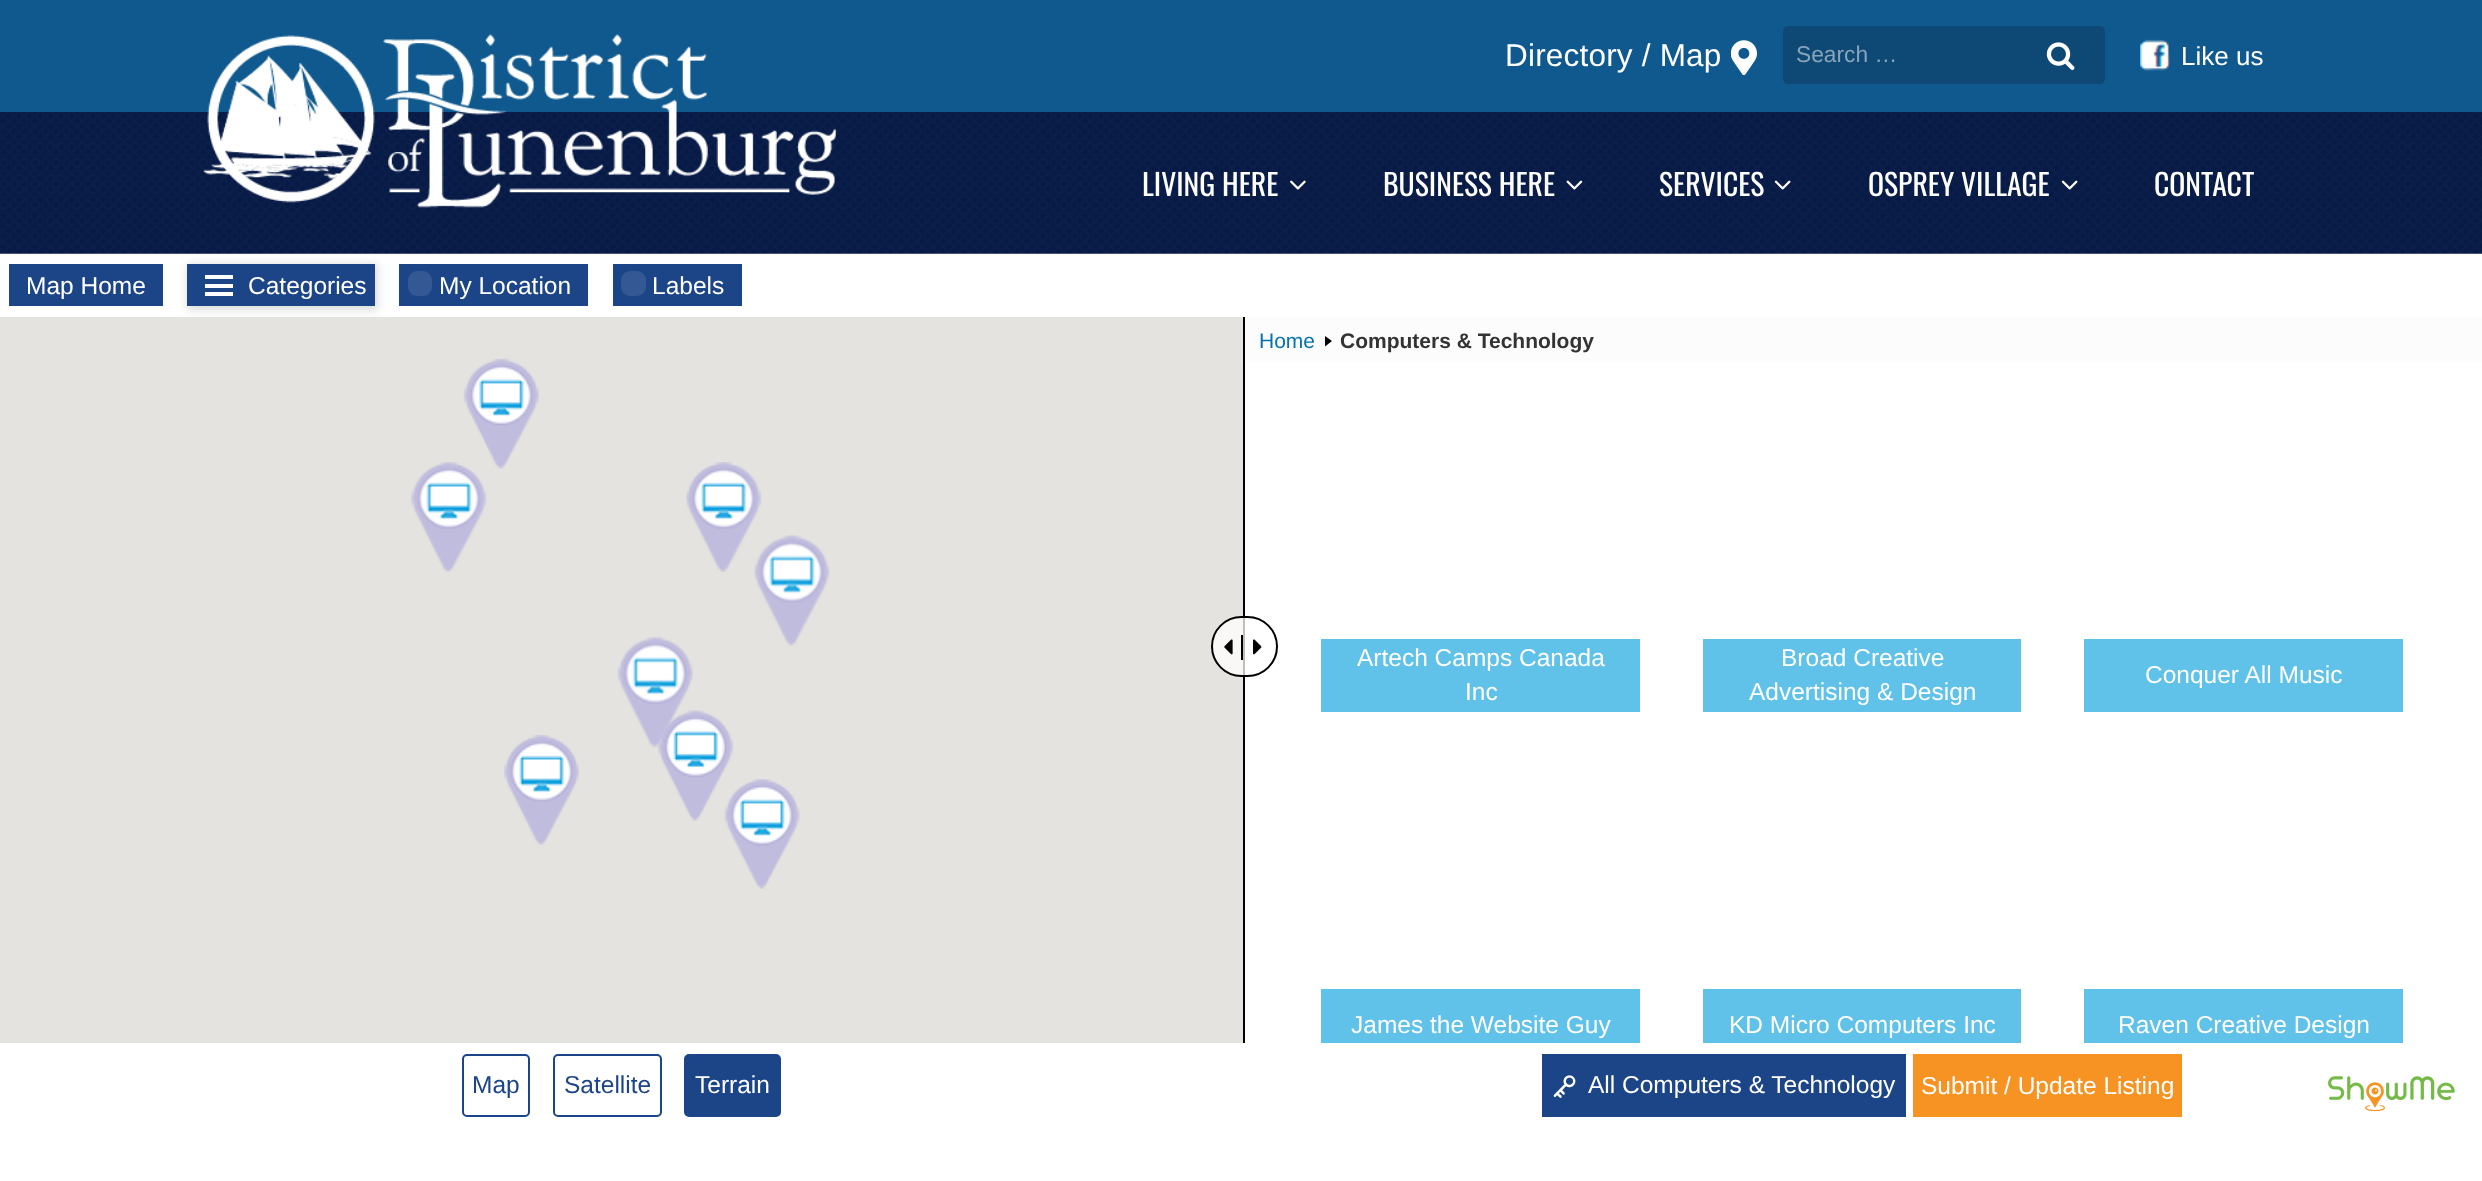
(async () => {
  const canvas = document.querySelector("canvas");
  canvas.width = 2482;
  canvas.height = 1181;
  const ctx = canvas.getContext("2d");
  ctx.miterLimit = 4;
  ctx.fontKerning = "normal";
  async function loadImage(src) {
    const img = new Image();
    img.src = src;
    await img.decode();
    return img;
  }
  let path;

  ctx.fillStyle = "#ffffff";
  ctx.fillRect(0, 0, 2482, 1181);
  ctx.fillStyle = "#10598e";
  ctx.fillRect(0, 0, 2482, 112);
  ctx.drawImage(await loadImage("img/1.png"), 1731, 40, 26, 35);
  ctx.fillStyle = "#0e4976";
  ctx.beginPath();
  ctx.roundRect(1784, 27, 320, 56, 4);
  ctx.fill();
  ctx.strokeStyle = "#0e4976";
  ctx.lineWidth = 2;
  ctx.stroke();
  ctx.drawImage(await loadImage("img/2.png"), 2046, 42, 29, 28);
  ctx.drawImage(await loadImage("img/3.png"), 2140, 39, 30, 32);
  ctx.fillStyle = "#e5e3df";
  ctx.fillRect(0, 317, 1243, 726);
  ctx.fillStyle = "#dddddd";
  ctx.filter = "blur(4.5px)";
  ctx.beginPath();
  ctx.rect(187, 264, 191, 46);
  ctx.fill();
  ctx.filter = "none";
  ctx.drawImage(await loadImage("img/4.png"), 0, 112, 2482, 142);
  ctx.drawImage(await loadImage("img/5.png"), 203, 34, 634, 174);
  ctx.drawImage(await loadImage("img/6.png"), 1290, 180, 16, 10);
  ctx.drawImage(await loadImage("img/7.png"), 1566, 180, 17, 10);
  ctx.drawImage(await loadImage("img/8.png"), 1774, 180, 17, 10);
  ctx.drawImage(await loadImage("img/9.png"), 2061, 180, 17, 10);
  for (const [x, y, w, h, color] of [
    [9, 264, 154, 42, "#1c4587"],
    [187, 264, 188, 42, "#1c4587"],
    [205, 284, 28, 4, "#ffffff"],
    [205, 275, 28, 4, "#ffffff"],
    [205, 292, 28, 4, "#ffffff"],
    [399, 264, 189, 42, "#1c4587"],
  ]) {
    ctx.fillStyle = color;
    ctx.fillRect(x, y, w, h);
  }
  ctx.fillStyle = "#335893";
  ctx.beginPath();
  ctx.roundRect(408, 271, 24, 25, 9);
  ctx.fill();
  ctx.fillStyle = "#1c4587";
  ctx.fillRect(613, 264, 129, 42);
  ctx.fillStyle = "#335893";
  ctx.beginPath();
  ctx.roundRect(621, 271, 25, 25, 9);
  ctx.fill();
  ctx.drawImage(await loadImage("img/10.png"), 463, 358, 76, 111);
  ctx.drawImage(await loadImage("img/11.png"), 411, 462, 76, 110);
  ctx.drawImage(await loadImage("img/12.png"), 686, 462, 76, 110);
  ctx.drawImage(await loadImage("img/13.png"), 754, 535, 76, 111);
  ctx.drawImage(await loadImage("img/14.png"), 617, 637, 76, 111);
  ctx.drawImage(await loadImage("img/15.png"), 504, 735, 75, 110);
  ctx.drawImage(await loadImage("img/16.png"), 658, 710, 76, 111);
  ctx.drawImage(await loadImage("img/17.png"), 724, 779, 76, 110);
  ctx.fillStyle = "#000000";
  ctx.fillRect(1243, 317, 2, 726);
  ctx.fillStyle = "rgba(255, 255, 255, 0.75)";
  ctx.beginPath();
  ctx.roundRect(1212, 617, 65, 59, 29.5);
  ctx.fill();
  ctx.strokeStyle = "#000000";
  ctx.stroke();
  ctx.drawImage(await loadImage("img/18.png"), 1224, 639, 9, 16);
  ctx.fillStyle = "#000000";
  ctx.fillRect(1241, 635, 2, 25);
  ctx.drawImage(await loadImage("img/19.png"), 1253, 639, 9, 16);
  ctx.fillStyle = "#fcfcfc";
  ctx.fillRect(1245, 317, 1237, 45);
  ctx.fillStyle = "#000000";
  path = new Path2D("M1325 346.5V336L1332 341Z");
  ctx.fill(path);
  for (const [x, y, w, h, color] of [
    [1321, 639, 319, 73, "#60c1e9"],
    [1703, 639, 318, 73, "#60c1e9"],
    [2084, 639, 319, 73, "#60c1e9"],
    [1321, 989, 319, 54, "#60c1e9"],
    [1703, 989, 318, 54, "#60c1e9"],
    [2084, 989, 319, 54, "#60c1e9"],
  ]) {
    ctx.fillStyle = color;
    ctx.fillRect(x, y, w, h);
  }
  ctx.beginPath();
  ctx.roundRect(463, 1055, 66, 61, 4);
  ctx.strokeStyle = "#1c4587";
  ctx.stroke();
  ctx.beginPath();
  ctx.roundRect(554, 1055, 107, 61, 4);
  ctx.stroke();
  ctx.fillStyle = "#1c4587";
  ctx.beginPath();
  ctx.roundRect(685, 1055, 95, 61, 4);
  ctx.fill();
  ctx.stroke();
  ctx.fillRect(1542, 1054, 364, 63);
  ctx.drawImage(await loadImage("img/20.png"), 1553, 1075, 23, 23);
  ctx.fillStyle = "#f69322";
  ctx.fillRect(1913, 1054, 269, 63);
  ctx.drawImage(await loadImage("img/21.png"), 2328, 1076, 127, 35);
  ctx.letterSpacing = "0.2px";
  ctx.font = "31.5px Liberation Sans";
  ctx.fillStyle = "#ffffff";
  ctx.fillText("Directory / Map", 1505, 66);
  ctx.letterSpacing = "0px";
  ctx.font = "22.75px Liberation Sans";
  ctx.fillStyle = "#87a4bb";
  ctx.fillText("Search …", 1796, 62);
  ctx.font = "26px Liberation Sans";
  ctx.fillStyle = "#ffffff";
  ctx.fillText("Like us", 2181, 65);
  ctx.font = "29.75px Oswald";
  for (const [text, x, y] of [
    ["LIVING HERE", 1142, 196],
    ["BUSINESS HERE", 1383, 196],
    ["SERVICES", 1659, 196],
    ["OSPREY VILLAGE", 1868, 196],
    ["CONTACT", 2154, 196],
  ]) {
    ctx.fillText(text, x, y);
  }
  ctx.font = "24.5px Liberation Sans";
  for (const [text, x, y] of [
    ["Map Home", 26, 294],
    ["Categories", 248, 294],
    ["My Location", 439, 294],
    ["Labels", 652, 294],
  ]) {
    ctx.fillText(text, x, y);
  }
  ctx.font = "21px Liberation Sans";
  ctx.fillStyle = "#0772ab";
  ctx.fillText("Home", 1259, 348);
  ctx.font = "bold 21px Liberation Sans";
  ctx.fillStyle = "#333333";
  ctx.fillText("Computers & Technology", 1340, 348);
  ctx.font = "24.5px Liberation Sans";
  ctx.fillStyle = "#ffffff";
  for (const [text, x, y] of [
    ["Artech Camps Canada", 1357, 666],
    ["Inc", 1465, 700],
    ["Broad Creative", 1781, 666],
    ["Advertising & Design", 1749, 700],
    ["Conquer All Music", 2145, 683],
    ["James the Website Guy", 1351, 1033],
    ["KD Micro Computers Inc", 1729, 1033],
    ["Raven Creative Design", 2118, 1033],
  ]) {
    ctx.fillText(text, x, y);
  }
  ctx.fillStyle = "#1c4587";
  ctx.fillText("Map", 472, 1093);
  ctx.fillText("Satellite", 564, 1093);
  ctx.fillStyle = "#ffffff";
  for (const [text, x, y] of [
    ["Terrain", 695, 1093],
    ["All Computers & Technology", 1588, 1093],
    ["Submit / Update Listing", 1921, 1094],
  ]) {
    ctx.fillText(text, x, y);
  }
})();
